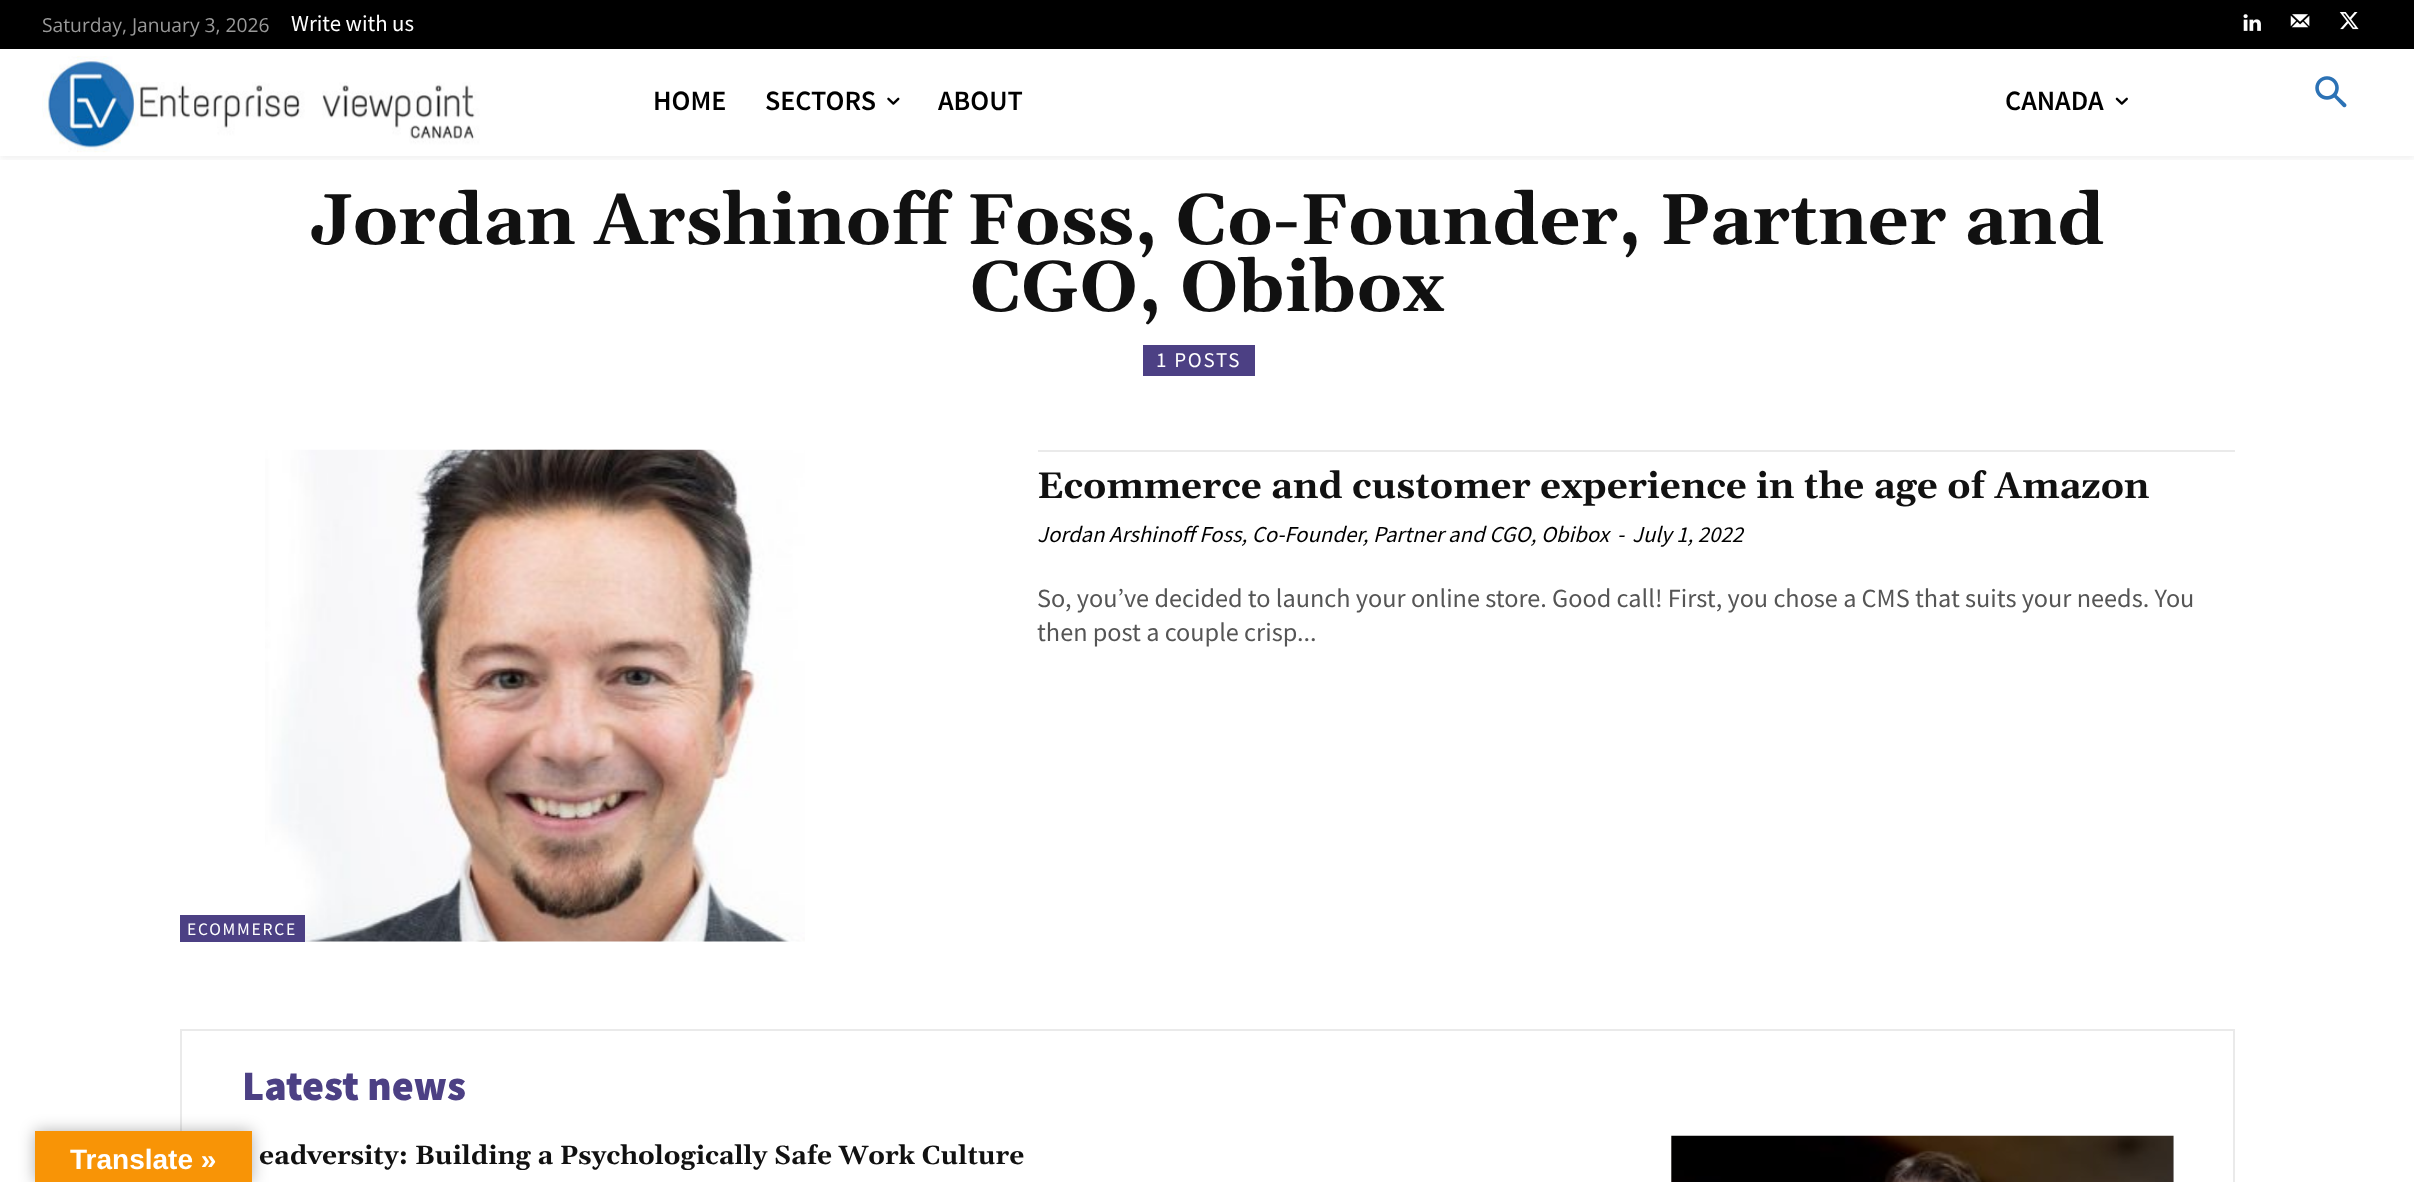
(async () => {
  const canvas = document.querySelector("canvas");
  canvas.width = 2414;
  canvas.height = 1182;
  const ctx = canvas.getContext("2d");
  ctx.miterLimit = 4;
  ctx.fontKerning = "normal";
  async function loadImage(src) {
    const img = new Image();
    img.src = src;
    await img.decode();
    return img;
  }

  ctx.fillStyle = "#ffffff";
  ctx.fillRect(0, 0, 2414, 1182);
  ctx.fillStyle = "#000000";
  ctx.fillRect(0, 0, 2414, 49);
  ctx.drawImage(await loadImage("img/1.png"), 2243, 14, 18, 17);
  ctx.drawImage(await loadImage("img/2.png"), 2290, 14, 20, 14);
  ctx.drawImage(await loadImage("img/3.png"), 2339, 12, 20, 18);
  ctx.drawImage(await loadImage("img/4.png"), 42, 56, 438, 97);
  ctx.save();
  ctx.beginPath();
  ctx.rect(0, 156, 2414, 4);
  ctx.clip();
  ctx.fillStyle = "rgba(0, 0, 0, 0.06)";
  ctx.filter = "blur(3.5px)";
  ctx.beginPath();
  ctx.rect(0, 53, 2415, 106);
  ctx.fill();
  ctx.filter = "none";
  ctx.restore();
  ctx.drawImage(await loadImage("img/5.png"), 887, 97, 13, 8);
  ctx.drawImage(await loadImage("img/6.png"), 2115, 97, 13, 8);
  ctx.drawImage(await loadImage("img/7.png"), 2315, 76, 32, 32);
  ctx.fillStyle = "#4c4084";
  ctx.fillRect(1143, 345, 112, 31);
  ctx.fillStyle = "#eaeaea";
  ctx.fillRect(1038, 450, 1197, 2);
  ctx.drawImage(await loadImage("img/8.png"), 265, 449, 540, 493);
  ctx.fillStyle = "#4c4084";
  ctx.fillRect(180, 915, 125, 27);
  ctx.strokeStyle = "#eaeaea";
  ctx.lineWidth = 2;
  ctx.strokeRect(181, 1030, 2053, 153);
  ctx.drawImage(await loadImage("img/9.png"), 1671, 1135, 503, 47);
  ctx.fillStyle = "rgba(0, 0, 0, 0.3)";
  ctx.filter = "blur(8px)";
  ctx.beginPath();
  ctx.rect(35, 1131, 217, 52);
  ctx.fill();
  ctx.filter = "none";
  ctx.fillStyle = "#f89406";
  ctx.fillRect(35, 1131, 217, 51);
  ctx.font = "19.25px Open Sans";
  ctx.fillStyle = "#999999";
  ctx.fillText("Saturday, January 3, 2026", 42, 32);
  ctx.font = "22.75px Source Sans Pro";
  ctx.fillStyle = "#ffffff";
  ctx.fillText("Write with us", 291, 31);
  ctx.font = "600 28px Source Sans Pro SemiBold";
  ctx.fillStyle = "#000000";
  for (const [text, x, y] of [
    ["HOME", 653, 110],
    ["SECTORS", 765, 110],
    ["ABOUT", 938, 110],
    ["CANADA", 2005, 110],
  ]) {
    ctx.fillText(text, x, y);
  }
  ctx.font = "bold 71.75px Gelasio";
  ctx.fillStyle = "#111111";
  ctx.fillText("Jordan Arshinoff Foss, Co-Founder, Partner and", 310, 244);
  ctx.fillText("CGO, Obibox", 970, 311);
  ctx.letterSpacing = "1.75px";
  ctx.font = "21px Source Sans Pro";
  ctx.fillStyle = "#ffffff";
  ctx.fillText("1 POSTS", 1156, 367);
  ctx.letterSpacing = "0px";
  ctx.font = "bold 36.75px Gelasio";
  ctx.fillStyle = "#111111";
  ctx.fillText("Ecommerce and customer experience in the age of Amazon", 1037, 498);
  ctx.font = "italic 22.75px Source Sans Pro";
  ctx.fillStyle = "#000000";
  for (const [text, x, y] of [
    ["Jordan Arshinoff Foss, Co-Founder, Partner and CGO, Obibox", 1037, 542],
    ["-", 1617, 542],
    ["July 1, 2022", 1632, 542],
  ]) {
    ctx.fillText(text, x, y);
  }
  ctx.font = "26.25px Source Sans Pro";
  ctx.fillStyle = "#555555";
  ctx.fillText("So, you’ve decided to launch your online store. Good call! First, you chose a CMS that suits your needs. You", 1037, 607);
  ctx.fillText("then post a couple crisp...", 1037, 641);
  ctx.letterSpacing = "1.75px";
  ctx.font = "17.5px Source Sans Pro";
  ctx.fillStyle = "#ffffff";
  ctx.fillText("ECOMMERCE", 187, 935);
  ctx.letterSpacing = "0px";
  ctx.font = "900 42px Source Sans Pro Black";
  ctx.fillStyle = "#4c4084";
  ctx.fillText("Latest news", 242, 1100);
  ctx.font = "bold 26.25px Gelasio";
  ctx.fillStyle = "#111111";
  ctx.fillText("eadversity: Building a Psychologically Safe Work Culture", 259, 1164);
  ctx.font = "bold 28px Liberation Sans";
  ctx.fillStyle = "#ffffff";
  ctx.fillText("Translate »", 70, 1169);
})();
